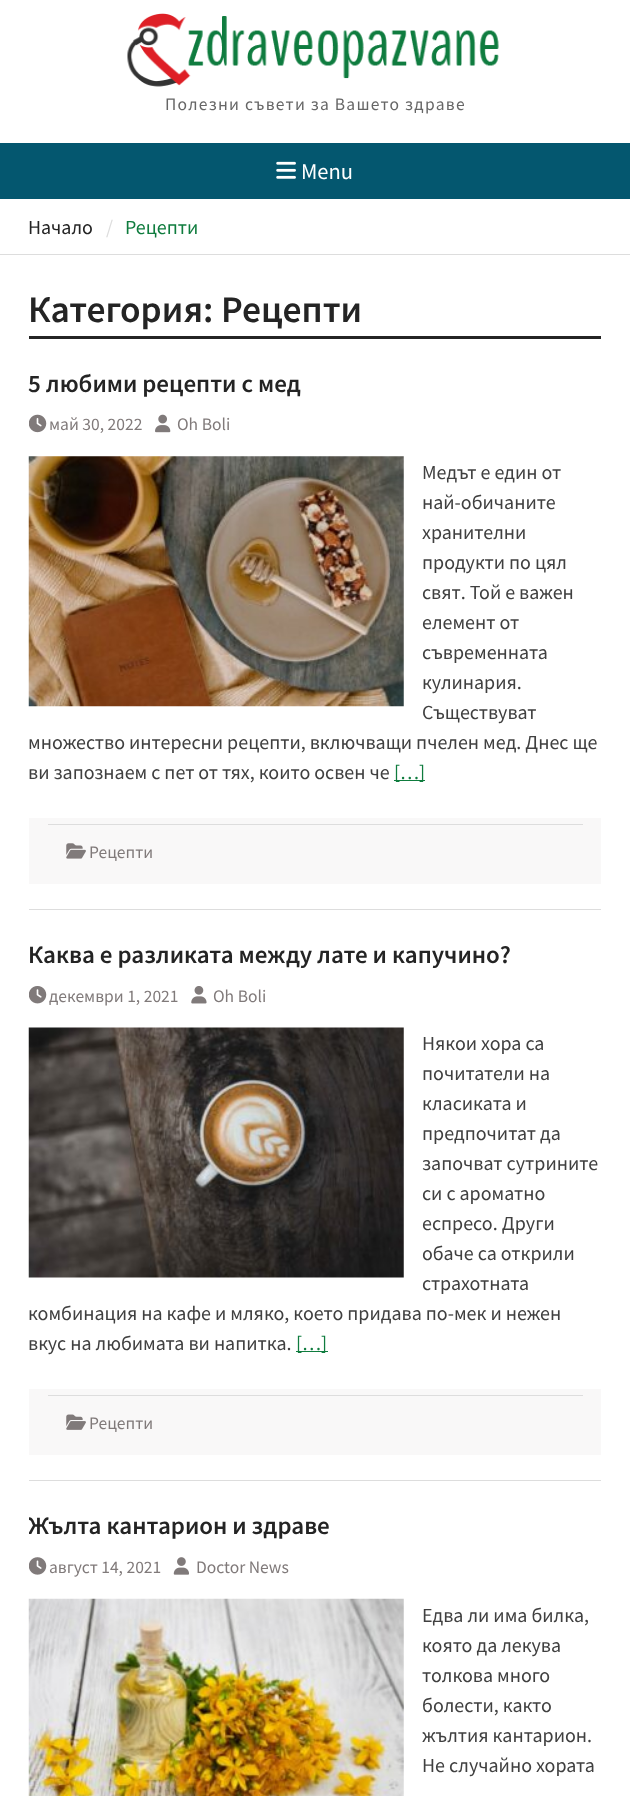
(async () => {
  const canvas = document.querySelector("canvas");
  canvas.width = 630;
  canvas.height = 1796;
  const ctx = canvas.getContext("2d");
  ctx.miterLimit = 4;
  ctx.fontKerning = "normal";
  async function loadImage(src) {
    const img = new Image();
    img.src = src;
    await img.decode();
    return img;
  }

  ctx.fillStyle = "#ffffff";
  ctx.fillRect(0, 0, 630, 1796);
  ctx.drawImage(await loadImage("img/1.png"), 127, 13, 372, 74);
  ctx.fillStyle = "#04576f";
  ctx.fillRect(0, 143, 630, 56);
  ctx.drawImage(await loadImage("img/2.png"), 276, 161, 20, 18);
  for (const [x, y, w, h, color] of [
    [0, 254, 630, 1, "#dddddd"],
    [29, 336, 572, 3, "#242424"],
    [29, 909, 572, 1, "#dddddd"],
  ]) {
    ctx.fillStyle = color;
    ctx.fillRect(x, y, w, h);
  }
  ctx.drawImage(await loadImage("img/3.png"), 29, 414, 18, 19);
  ctx.drawImage(await loadImage("img/4.png"), 155, 414, 16, 19);
  ctx.drawImage(await loadImage("img/5.png"), 28, 456, 376, 251);
  for (const [x, y, w, h, color] of [
    [394, 780, 31, 1, "#0f7c3e"],
    [29, 818, 572, 66, "#f9f8f8"],
    [48, 824, 535, 1, "#dddddd"],
  ]) {
    ctx.fillStyle = color;
    ctx.fillRect(x, y, w, h);
  }
  ctx.drawImage(await loadImage("img/6.png"), 66, 843, 20, 16);
  ctx.fillRect(29, 1480, 572, 1);
  ctx.drawImage(await loadImage("img/7.png"), 29, 986, 18, 18);
  ctx.drawImage(await loadImage("img/8.png"), 191, 986, 16, 18);
  ctx.drawImage(await loadImage("img/9.png"), 28, 1027, 376, 251);
  for (const [x, y, w, h, color] of [
    [296, 1351, 32, 1, "#0f7c3e"],
    [29, 1389, 572, 66, "#f9f8f8"],
    [48, 1395, 535, 1, "#dddddd"],
  ]) {
    ctx.fillStyle = color;
    ctx.fillRect(x, y, w, h);
  }
  ctx.drawImage(await loadImage("img/10.png"), 66, 1414, 20, 16);
  ctx.drawImage(await loadImage("img/11.png"), 29, 1557, 18, 18);
  ctx.drawImage(await loadImage("img/12.png"), 173, 1557, 16, 18);
  ctx.drawImage(await loadImage("img/13.png"), 28, 1598, 376, 198);
  ctx.letterSpacing = "1.25px";
  ctx.font = "17.5px Source Sans Pro";
  ctx.fillStyle = "#666666";
  ctx.fillText("Полезни съвети за Вашето здраве", 165, 110);
  ctx.letterSpacing = "0px";
  ctx.font = "22.5px Source Sans Pro";
  ctx.fillStyle = "#ffffff";
  ctx.fillText("Menu", 301, 179);
  ctx.font = "20px Source Sans Pro";
  ctx.fillStyle = "#242424";
  ctx.fillText("Начало", 28, 234);
  ctx.fillStyle = "#dddddd";
  ctx.fillText("/", 106, 234);
  ctx.fillStyle = "#0f7c3e";
  ctx.fillText("Рецепти", 125, 234);
  ctx.font = "600 37.5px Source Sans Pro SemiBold";
  ctx.fillStyle = "#242424";
  ctx.fillText("Категория: Рецепти", 28, 322);
  ctx.font = "600 25px Source Sans Pro SemiBold";
  ctx.fillText("5 любими рецепти с мед", 28, 392);
  ctx.font = "17.5px Source Sans Pro";
  ctx.fillStyle = "#807a7a";
  ctx.fillText("май 30, 2022", 49, 430);
  ctx.fillText("Oh Boli", 177, 430);
  ctx.font = "20px Source Sans Pro";
  ctx.fillStyle = "#404040";
  for (const [text, x, y] of [
    ["Медът е един от", 422, 479],
    ["най-обичаните", 422, 509],
    ["хранителни", 422, 539],
    ["продукти по цял", 422, 569],
    ["свят. Той е важен", 422, 599],
    ["елемент от", 422, 629],
    ["съвременната", 422, 659],
    ["кулинария.", 422, 689],
    ["Съществуват", 422, 719],
    ["множество интересни рецепти, включващи пчелен мед. Днес ще", 28, 749],
    ["ви запознаем с пет от тях, които освен че", 28, 779],
  ]) {
    ctx.fillText(text, x, y);
  }
  ctx.fillStyle = "#0f7c3e";
  ctx.fillText("[…]", 394, 779);
  ctx.font = "17.5px Source Sans Pro";
  ctx.fillStyle = "#807a7a";
  ctx.fillText("Рецепти", 89, 858);
  ctx.font = "600 25px Source Sans Pro SemiBold";
  ctx.fillStyle = "#242424";
  ctx.fillText("Каква е разликата между лате и капучино?", 28, 963);
  ctx.font = "17.5px Source Sans Pro";
  ctx.fillStyle = "#807a7a";
  ctx.fillText("декември 1, 2021", 49, 1002);
  ctx.fillText("Oh Boli", 213, 1002);
  ctx.font = "20px Source Sans Pro";
  ctx.fillStyle = "#404040";
  for (const [text, x, y] of [
    ["Някои хора са", 422, 1050],
    ["почитатели на", 422, 1080],
    ["класиката и", 422, 1110],
    ["предпочитат да", 422, 1140],
    ["започват сутрините", 422, 1170],
    ["си с ароматно", 422, 1200],
    ["еспресо. Други", 422, 1230],
    ["обаче са открили", 422, 1260],
    ["страхотната", 422, 1290],
    ["комбинация на кафе и мляко, което придава по-мек и нежен", 28, 1320],
    ["вкус на любимата ви напитка.", 28, 1350],
  ]) {
    ctx.fillText(text, x, y);
  }
  ctx.fillStyle = "#0f7c3e";
  ctx.fillText("[…]", 296, 1350);
  ctx.font = "17.5px Source Sans Pro";
  ctx.fillStyle = "#807a7a";
  ctx.fillText("Рецепти", 89, 1429);
  ctx.save();
  ctx.beginPath();
  ctx.rect(29, 1506, 572, 74);
  ctx.clip();
  ctx.font = "600 25px Source Sans Pro SemiBold";
  ctx.fillStyle = "#242424";
  ctx.fillText("Жълта кантарион и здраве", 28, 1534);
  ctx.restore();
  ctx.fillText("август 14, 2021", 49, 1573);
  ctx.fillText("Doctor News", 196, 1573);
  ctx.font = "20px Source Sans Pro";
  ctx.fillStyle = "#404040";
  for (const [text, x, y] of [
    ["Едва ли има билка,", 422, 1622],
    ["която да лекува", 422, 1652],
    ["толкова много", 422, 1682],
    ["болести, както", 422, 1712],
    ["жълтия кантарион.", 422, 1742],
    ["Не случайно хората", 422, 1772],
  ]) {
    ctx.fillText(text, x, y);
  }
})();
